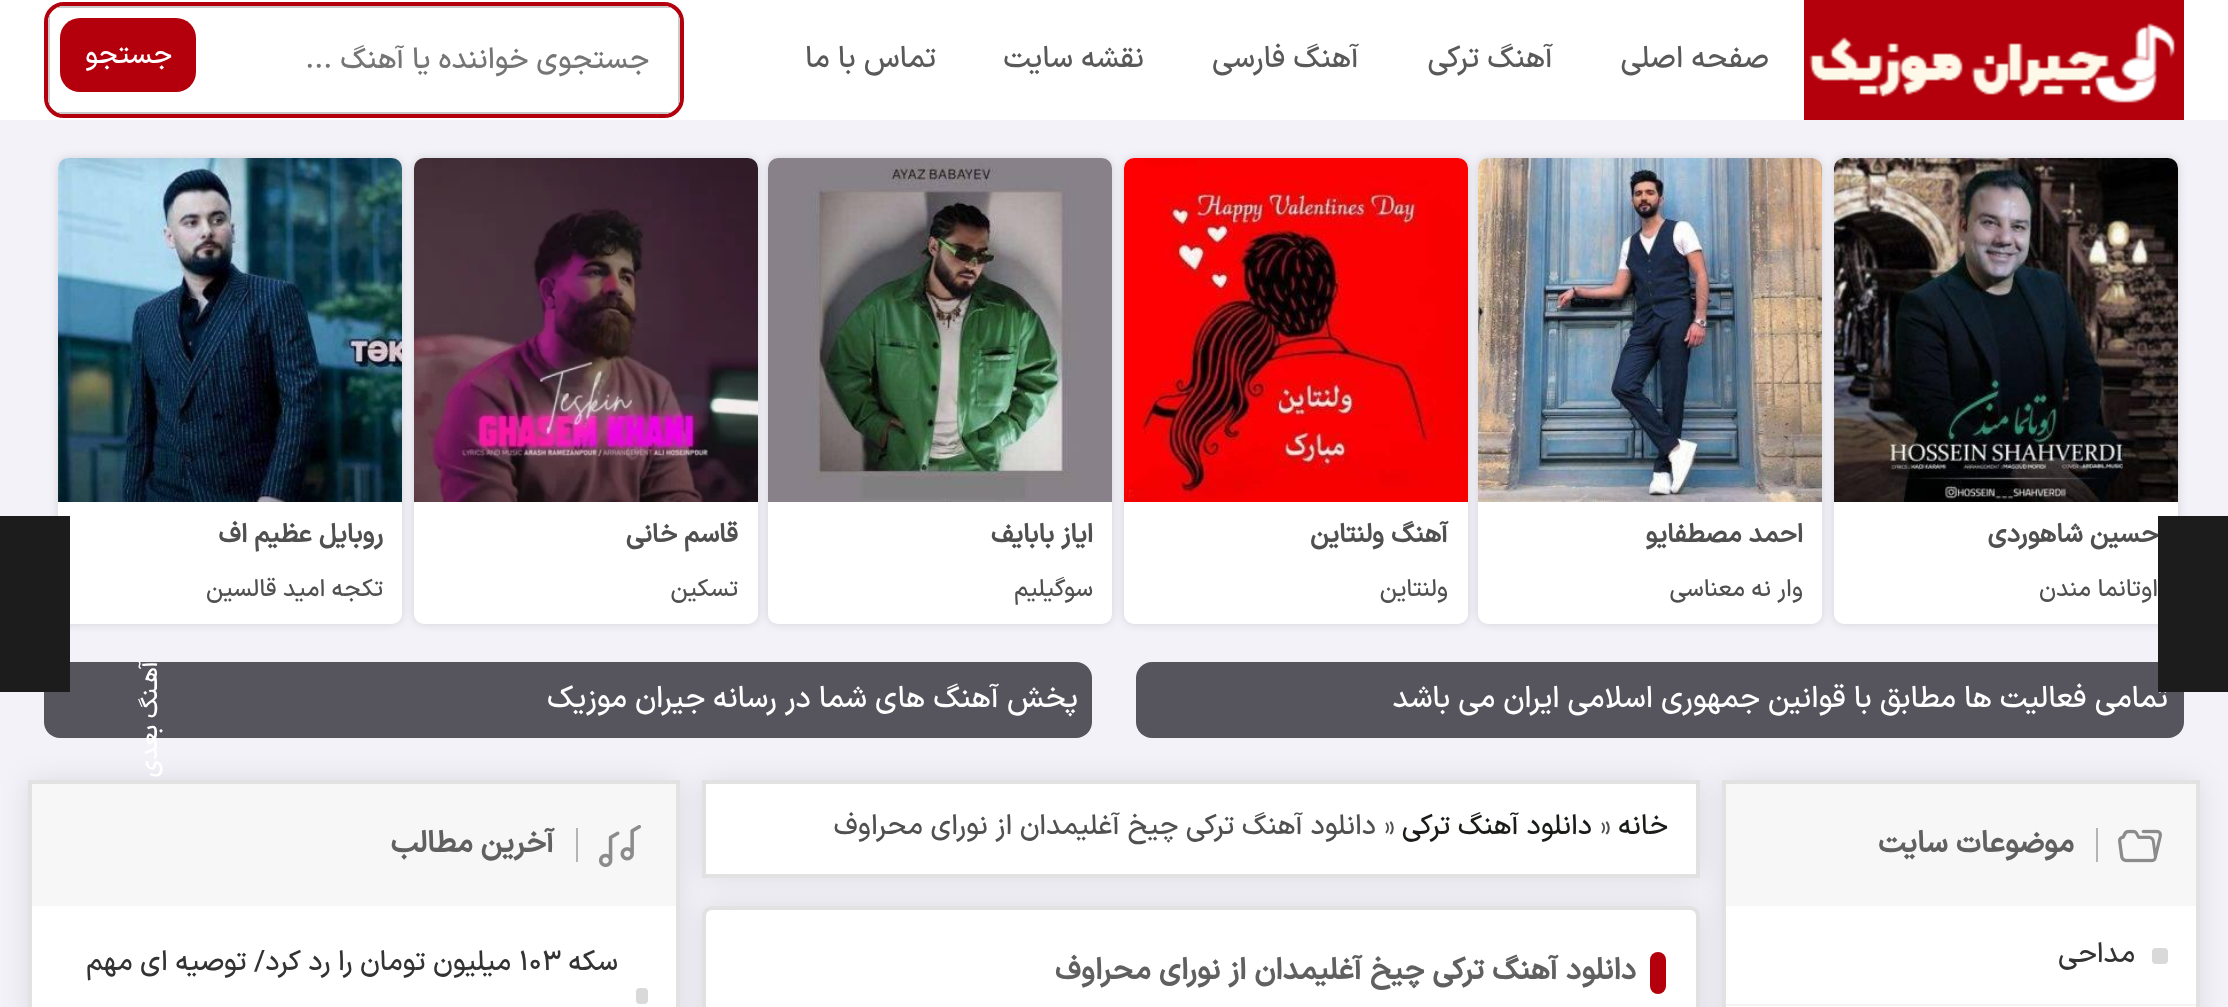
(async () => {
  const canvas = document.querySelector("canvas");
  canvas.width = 2228;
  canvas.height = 1007;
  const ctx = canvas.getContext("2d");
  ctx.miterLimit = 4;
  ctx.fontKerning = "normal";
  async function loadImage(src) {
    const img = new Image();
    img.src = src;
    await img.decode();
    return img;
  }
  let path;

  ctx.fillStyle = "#f4f2f9";
  ctx.fillRect(0, 0, 2228, 1007);
  ctx.fillStyle = "#ffffff";
  ctx.fillRect(0, 0, 2228, 120);
  ctx.fillStyle = "#b3000c";
  ctx.fillRect(1804, 0, 380, 120);
  ctx.drawImage(await loadImage("img/1.png"), 1809, 23, 366, 80);
  ctx.beginPath();
  ctx.roundRect(46, 4, 636, 112, 18);
  ctx.strokeStyle = "#b3000c";
  ctx.lineWidth = 4;
  ctx.stroke();
  ctx.fillStyle = "#cacaca";
  path = new Path2D("M48 22V98C48 101 49 104 50 106V60V14C49 16 48 19 48 22ZM58 8H672C670 7 667 6 664 6H64C61 6 58 7 56 8ZM680 22C680 19 679 16 678 14V60V106C679 104 680 101 680 98ZM664 114C667 114 670 113 672 112H568H56C58 113 61 114 64 114Z");
  ctx.fill(path, "evenodd");
  ctx.fillStyle = "#b3000c";
  ctx.beginPath();
  ctx.roundRect(60, 18, 136, 74, 20);
  ctx.fill();
  ctx.fillStyle = "rgba(0, 0, 0, 0.13)";
  ctx.filter = "blur(5px)";
  ctx.beginPath();
  ctx.roundRect(1834, 158, 344, 466, 10);
  ctx.fill();
  ctx.filter = "none";
  ctx.fillStyle = "#ffffff";
  ctx.beginPath();
  ctx.roundRect(1834, 158, 344, 466, 10);
  ctx.fill();
  ctx.fillStyle = "rgba(0, 0, 0, 0.13)";
  ctx.filter = "blur(5px)";
  ctx.beginPath();
  ctx.roundRect(1478, 158, 344, 466, 10);
  ctx.fill();
  ctx.filter = "none";
  ctx.drawImage(await loadImage("img/2.png"), 1834, 158, 344, 344);
  ctx.fillStyle = "#ffffff";
  ctx.beginPath();
  ctx.roundRect(1478, 158, 344, 466, 10);
  ctx.fill();
  ctx.fillStyle = "rgba(0, 0, 0, 0.13)";
  ctx.filter = "blur(5px)";
  ctx.beginPath();
  ctx.roundRect(1124, 158, 344, 466, 10);
  ctx.fill();
  ctx.filter = "none";
  ctx.drawImage(await loadImage("img/3.png"), 1478, 158, 344, 344);
  ctx.fillStyle = "#ffffff";
  ctx.beginPath();
  ctx.roundRect(1124, 158, 344, 466, 10);
  ctx.fill();
  ctx.fillStyle = "rgba(0, 0, 0, 0.13)";
  ctx.filter = "blur(5px)";
  ctx.beginPath();
  ctx.roundRect(768, 158, 344, 466, 10);
  ctx.fill();
  ctx.filter = "none";
  ctx.drawImage(await loadImage("img/4.png"), 1124, 158, 344, 344);
  ctx.fillStyle = "#ffffff";
  ctx.beginPath();
  ctx.roundRect(768, 158, 344, 466, 10);
  ctx.fill();
  ctx.fillStyle = "rgba(0, 0, 0, 0.13)";
  ctx.filter = "blur(5px)";
  ctx.beginPath();
  ctx.roundRect(414, 158, 344, 466, 10);
  ctx.fill();
  ctx.filter = "none";
  ctx.drawImage(await loadImage("img/5.png"), 768, 158, 344, 344);
  ctx.fillStyle = "#ffffff";
  ctx.beginPath();
  ctx.roundRect(414, 158, 344, 466, 10);
  ctx.fill();
  ctx.fillStyle = "rgba(0, 0, 0, 0.13)";
  ctx.filter = "blur(5px)";
  ctx.beginPath();
  ctx.roundRect(58, 158, 344, 466, 10);
  ctx.fill();
  ctx.filter = "none";
  ctx.drawImage(await loadImage("img/6.png"), 414, 158, 344, 344);
  ctx.fillStyle = "#ffffff";
  ctx.beginPath();
  ctx.roundRect(58, 158, 344, 466, 10);
  ctx.fill();
  ctx.drawImage(await loadImage("img/7.png"), 58, 158, 344, 344);
  ctx.fillStyle = "#56555e";
  ctx.beginPath();
  ctx.roundRect(44, 662, 1048, 76, 16);
  ctx.fill();
  ctx.fillStyle = "#1c1c1c";
  ctx.fillRect(0, 516, 70, 176);
  ctx.fillStyle = "#56555e";
  ctx.beginPath();
  ctx.roundRect(1136, 662, 1048, 76, 16);
  ctx.fill();
  ctx.fillStyle = "rgba(0, 0, 0, 0.09)";
  ctx.filter = "blur(14px)";
  ctx.beginPath();
  ctx.rect(702, 780, 998, 98);
  ctx.fill();
  ctx.filter = "none";
  ctx.fillStyle = "#ffffff";
  ctx.beginPath();
  ctx.rect(704, 782, 994, 94);
  ctx.fill();
  ctx.strokeStyle = "#e2e2e2";
  ctx.stroke();
  ctx.fillStyle = "rgba(0, 0, 0, 0.09)";
  ctx.filter = "blur(14px)";
  ctx.beginPath();
  ctx.roundRect(702, 906, 998, 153, 10);
  ctx.fill();
  ctx.filter = "none";
  ctx.fillStyle = "#ffffff";
  ctx.beginPath();
  ctx.roundRect(704, 908, 994, 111, 8);
  ctx.fill();
  ctx.stroke();
  ctx.fillStyle = "#b3000c";
  ctx.beginPath();
  ctx.roundRect(1650, 952, 16, 42, 8);
  ctx.fill();
  ctx.fillStyle = "rgba(0, 0, 0, 0.09)";
  ctx.filter = "blur(14px)";
  ctx.beginPath();
  ctx.rect(1722, 780, 478, 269);
  ctx.fill();
  ctx.filter = "none";
  ctx.fillStyle = "#ffffff";
  ctx.fillRect(1726, 906, 470, 101);
  ctx.strokeRect(1724, 782, 474, 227);
  ctx.fillStyle = "#f7f7f7";
  ctx.fillRect(1726, 784, 470, 122);
  ctx.drawImage(await loadImage("img/8.png"), 2118, 829, 44, 34);
  ctx.fillStyle = "#b4b4b4";
  ctx.fillRect(2096, 828, 2, 34);
  ctx.fillStyle = "#f4f4f4";
  ctx.fillRect(1726, 1004, 470, 2);
  ctx.fillStyle = "#d9d9d9";
  ctx.beginPath();
  ctx.roundRect(2152, 948, 16, 16, 4);
  ctx.fill();
  ctx.fillStyle = "rgba(0, 0, 0, 0.09)";
  ctx.filter = "blur(14px)";
  ctx.beginPath();
  ctx.rect(28, 780, 652, 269);
  ctx.fill();
  ctx.filter = "none";
  ctx.fillStyle = "#ffffff";
  ctx.fillRect(32, 906, 644, 101);
  ctx.strokeRect(30, 782, 648, 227);
  ctx.fillStyle = "#f7f7f7";
  ctx.fillRect(32, 784, 644, 122);
  ctx.drawImage(await loadImage("img/9.png"), 599, 825, 42, 42);
  ctx.fillStyle = "#b4b4b4";
  ctx.fillRect(576, 828, 2, 34);
  ctx.fillStyle = "#d9d9d9";
  ctx.beginPath();
  ctx.roundRect(636, 988, 12, 16, 4);
  ctx.fill();
  ctx.direction = "rtl";
  ctx.font = "500 30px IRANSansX";
  ctx.fillStyle = "#595959";
  for (const [text, x, y] of [
    ["صفحه اصلی", 1769, 67],
    ["آهنگ ترکی", 1553, 67],
    ["آهنگ فارسی", 1359, 67],
    ["نقشه سایت", 1144, 67],
    ["تماس با ما", 936, 67],
  ]) {
    ctx.fillText(text, x, y);
  }
  ctx.font = "500 29.25px IRANSansX";
  ctx.fillStyle = "#757575";
  ctx.fillText("جستجوی خواننده یا آهنگ ...", 649, 68);
  ctx.font = "500 28px IRANSansX";
  ctx.fillStyle = "#ffffff";
  ctx.fillText("جستجو", 172, 63);
  ctx.font = "bold 26px IRANSansX";
  ctx.fillStyle = "#505050";
  ctx.fillText("حسین شاهوردی", 2158, 542);
  ctx.font = "500 24px IRANSansX";
  ctx.fillText("اوتانما مندن", 2158, 596);
  ctx.font = "bold 26px IRANSansX";
  ctx.fillText("احمد مصطفایو", 1803, 542);
  ctx.font = "500 24px IRANSansX";
  ctx.fillText("وار نه معناسی", 1803, 596);
  ctx.font = "bold 26px IRANSansX";
  ctx.fillText("آهنگ ولنتاین", 1448, 542);
  ctx.font = "500 24px IRANSansX";
  ctx.fillText("ولنتاین", 1448, 596);
  ctx.font = "bold 26px IRANSansX";
  ctx.fillText("ایاز بابایف", 1093, 542);
  ctx.font = "500 24px IRANSansX";
  ctx.fillText("سوگیلیم", 1093, 596);
  ctx.font = "bold 26px IRANSansX";
  ctx.fillText("قاسم خانی", 738, 542);
  ctx.font = "500 24px IRANSansX";
  ctx.fillText("تسکین", 738, 596);
  ctx.font = "bold 26px IRANSansX";
  ctx.fillText("روبایل عظیم اف", 383, 542);
  ctx.font = "500 24px IRANSansX";
  ctx.fillText("تکجه امید قالسین", 383, 596);
  ctx.fillStyle = "#ffffff";
  ctx.save();
  ctx.translate(157, 661);
  ctx.rotate(-90 * Math.PI / 180);
  ctx.fillText("آهـنگ بعدی", 0, 0);
  ctx.restore();
  ctx.font = "500 28px IRANSansX";
  ctx.fillStyle = "#1a1c18";
  ctx.fillText("خانه", 1668, 834);
  ctx.direction = "ltr";
  ctx.fillStyle = "#505050";
  ctx.fillText("»", 1600, 834);
  ctx.direction = "rtl";
  ctx.fillStyle = "#1a1c18";
  ctx.fillText("دانلود آهنگ ترکی", 1592, 834);
  ctx.direction = "ltr";
  ctx.fillStyle = "#505050";
  ctx.fillText("»", 1384, 834);
  ctx.direction = "rtl";
  ctx.fillText("دانلود آهنگ ترکی چیخ آغلیمدان از نورای محراوف", 1376, 834);
  ctx.font = "bold 30px IRANSansX";
  ctx.fillStyle = "#616060";
  ctx.fillText("دانلود آهنگ ترکی چیخ آغلیمدان از نورای محراوف", 1636, 979);
  ctx.fillText("موضوعات سایت", 2074, 852);
  ctx.font = "500 28px IRANSansX";
  ctx.fillStyle = "#333333";
  ctx.fillText("مداحی", 2135, 962);
  ctx.font = "bold 30px IRANSansX";
  ctx.fillStyle = "#616060";
  ctx.fillText("آخرین مطالب", 554, 852);
  ctx.font = "500 28px IRANSansX";
  ctx.fillStyle = "#333333";
  ctx.fillText("سکه", 618, 970);
  ctx.direction = "ltr";
  ctx.font = "500 28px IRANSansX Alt";
  ctx.fillText("103", 519, 970);
  ctx.direction = "rtl";
  ctx.font = "500 28px IRANSansX";
  ctx.fillText("میلیون تومان را رد کرد/ توصیه ای مهم", 511, 970);
  ctx.font = "500 30px IRANSansX";
  ctx.fillStyle = "#ffffff";
  ctx.fillText("تمامی فعالیت ها مطابق با قوانین جمهوری اسلامی ایران می باشد", 2168, 707);
  ctx.fillStyle = "#1c1c1c";
  ctx.fillRect(2158, 516, 70, 176);
  ctx.font = "500 24px IRANSansX";
  ctx.fillStyle = "#ffffff";
  ctx.save();
  ctx.translate(2308, 649);
  ctx.rotate(-90 * Math.PI / 180);
  ctx.fillText("آهنـگ قبلی", 0, 0);
  ctx.restore();
  ctx.font = "500 30px IRANSansX";
  ctx.fillText("پخش آهنگ های شما در رسانه جیران موزیک", 1078, 707);
})();
